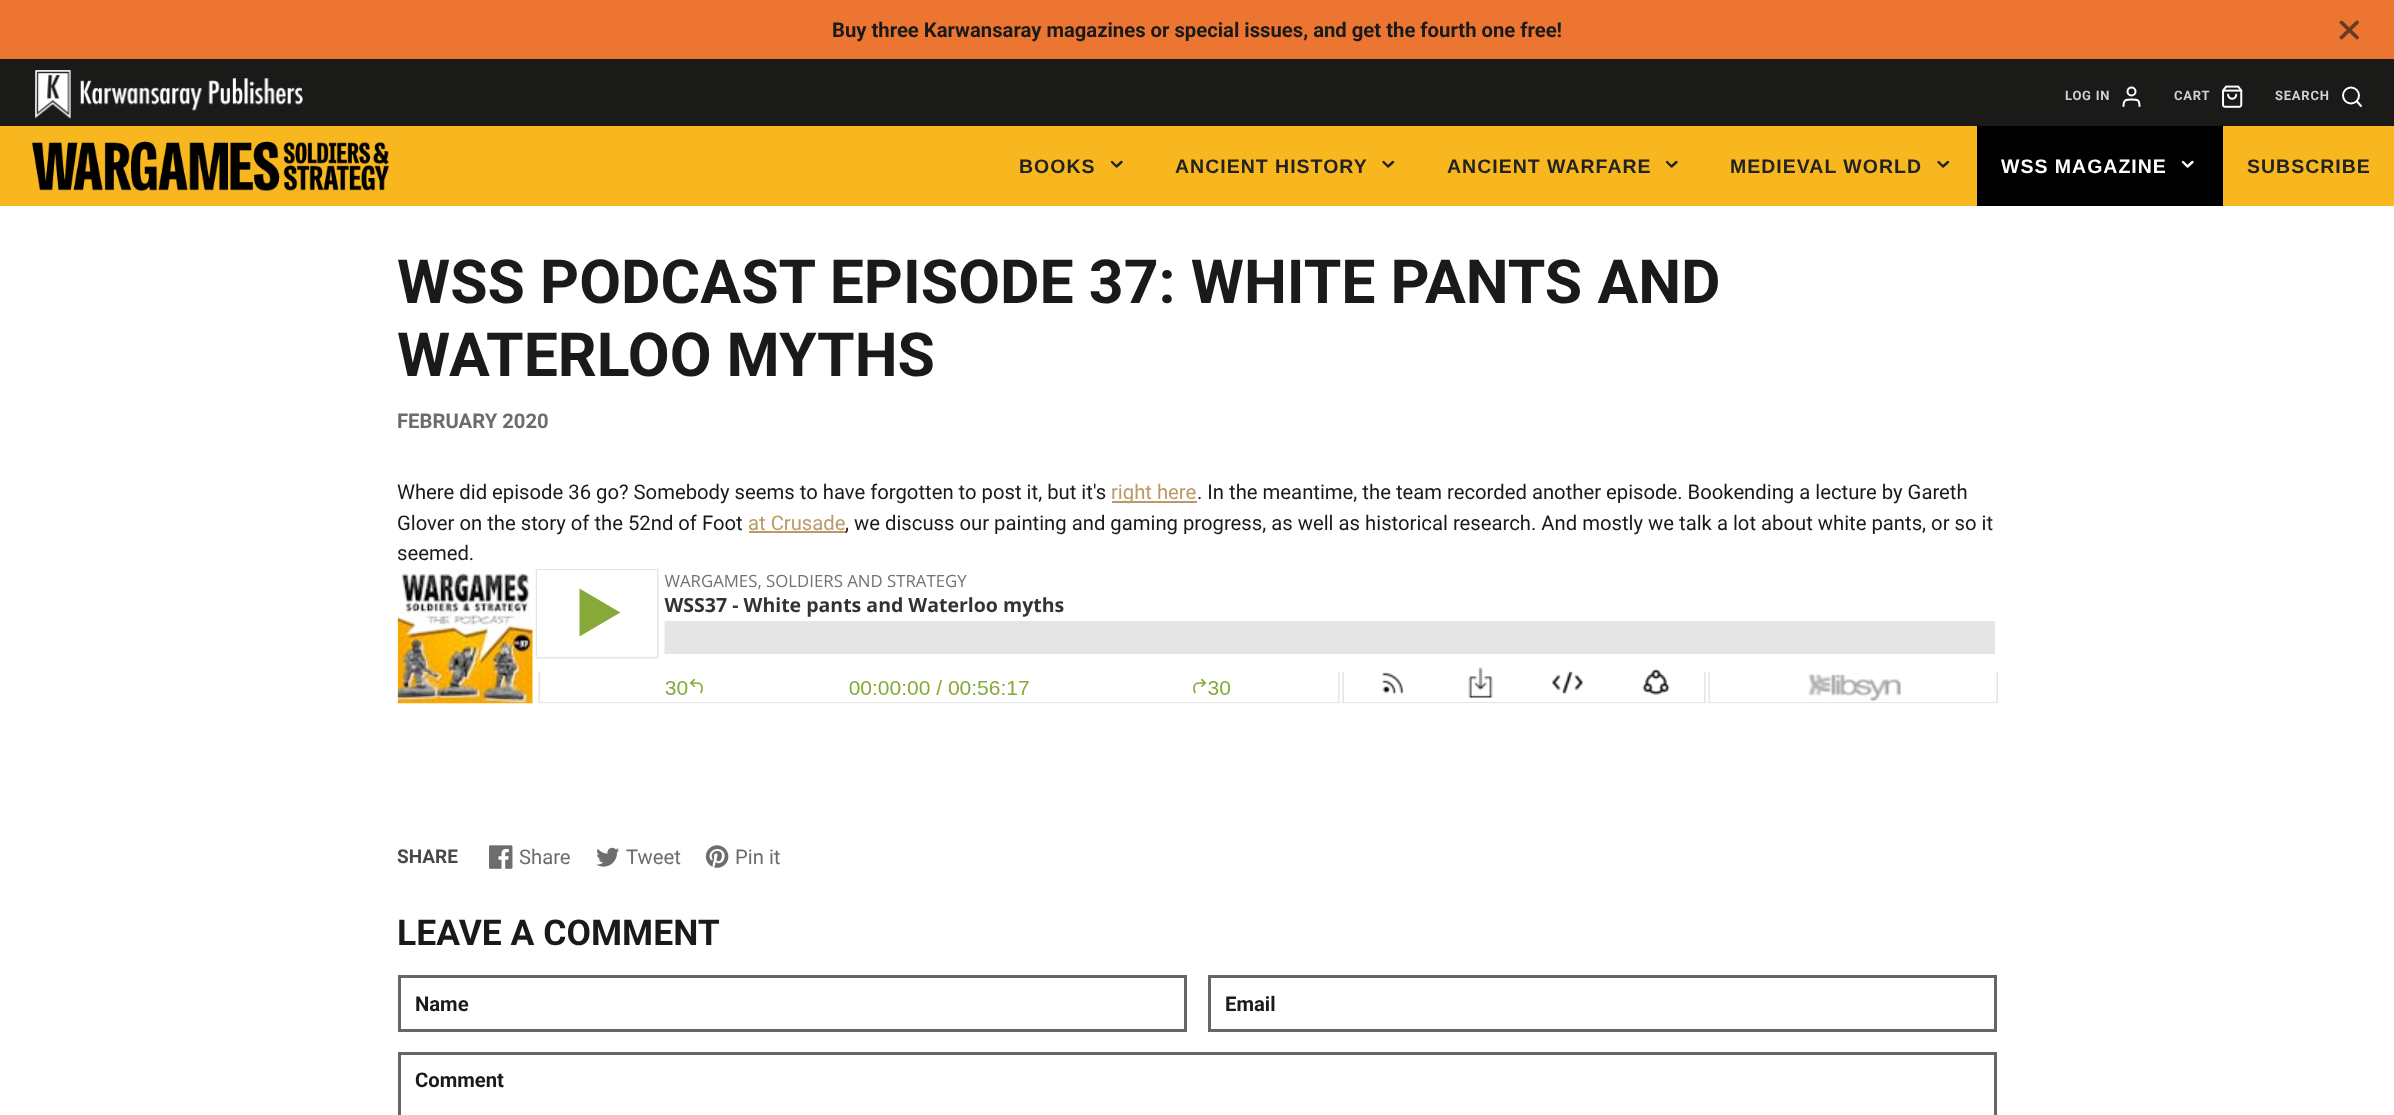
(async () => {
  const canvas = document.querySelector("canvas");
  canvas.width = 2394;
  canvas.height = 1115;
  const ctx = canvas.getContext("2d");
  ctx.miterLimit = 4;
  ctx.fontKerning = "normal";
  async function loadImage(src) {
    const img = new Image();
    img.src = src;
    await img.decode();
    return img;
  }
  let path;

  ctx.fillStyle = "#ffffff";
  ctx.fillRect(0, 0, 2394, 1115);
  ctx.fillStyle = "#ec7532";
  ctx.fillRect(0, 0, 2394, 59);
  path = new Path2D("M2357 22.5L2341.5 37.5M2341.5 22.5L2357 37.5");
  ctx.strokeStyle = "#663b21";
  ctx.lineWidth = 3.8;
  ctx.lineCap = "round";
  ctx.lineJoin = "round";
  ctx.stroke(path);
  ctx.fillStyle = "#1a1b18";
  ctx.fillRect(0, 59, 2394, 67);
  ctx.drawImage(await loadImage("img/1.png"), 35, 70, 268, 49);
  ctx.beginPath();
  ctx.arc(2131.5, 91.5, 4, 0, Math.PI * 2);
  ctx.strokeStyle = "#ffffff";
  ctx.lineWidth = 2;
  ctx.stroke();
  path = new Path2D("M2139.5 106C2139.5 99.5 2137.5 99.5 2131.5 99.5C2126 99.5 2123.5 99.5 2123.5 106");
  ctx.stroke(path);
  ctx.drawImage(await loadImage("img/2.png"), 2222, 85, 21, 23);
  ctx.beginPath();
  ctx.arc(2351, 95.5, 8, 0, Math.PI * 2);
  ctx.stroke();
  path = new Path2D("M2361 106L2357 101.5");
  ctx.stroke(path);
  ctx.fillStyle = "#f8b71f";
  ctx.fillRect(0, 126, 2394, 80);
  ctx.drawImage(await loadImage("img/3.png"), 31, 141, 358, 50);
  path = new Path2D("M1112 162L1116.5 166.5L1121.5 162");
  ctx.strokeStyle = "#222222";
  ctx.lineWidth = 2.4;
  ctx.stroke(path);
  path = new Path2D("M1383.5 162L1388 166.5L1393 162");
  ctx.stroke(path);
  path = new Path2D("M1667 162L1671.5 166.5L1676.5 162");
  ctx.stroke(path);
  path = new Path2D("M1938.5 162L1943 166.5L1948 162");
  ctx.stroke(path);
  ctx.fillStyle = "#000000";
  ctx.fillRect(1977, 126, 246, 80);
  path = new Path2D("M2183 162L2187.5 166.5L2192.5 162");
  ctx.strokeStyle = "#ffffff";
  ctx.stroke(path);
  ctx.fillStyle = "#bc9968";
  ctx.fillRect(1112, 501, 85, 2);
  ctx.fillRect(749, 531, 97, 2);
  ctx.drawImage(await loadImage("img/4.png"), 397, 569, 1601, 135);
  ctx.drawImage(await loadImage("img/5.png"), 489, 845, 24, 24);
  ctx.drawImage(await loadImage("img/6.png"), 596, 847, 24, 20);
  ctx.drawImage(await loadImage("img/7.png"), 705, 845, 24, 23);
  ctx.strokeStyle = "#666666";
  ctx.lineWidth = 3;
  ctx.lineJoin = "miter";
  ctx.strokeRect(399.5, 976.5, 786, 54);
  ctx.strokeRect(1209.5, 976.5, 786, 54);
  ctx.strokeRect(399.5, 1053.5, 1596, 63);
  ctx.font = "bold 20.25px Roboto";
  ctx.fillStyle = "#1a1b18";
  ctx.fillText("Buy three Karwansaray magazines or special issues, and get the fourth one free!", 832, 37);
  ctx.letterSpacing = "0.75px";
  ctx.font = "bold 13px Roboto";
  ctx.fillStyle = "#d1d1d1";
  for (const [text, x, y] of [
    ["LOG IN", 2065, 100],
    ["CART", 2174, 100],
    ["SEARCH", 2275, 100],
  ]) {
    ctx.fillText(text, x, y);
  }
  ctx.letterSpacing = "1px";
  ctx.font = "bold 19.5px Liberation Sans";
  ctx.fillStyle = "#222222";
  for (const [text, x, y] of [
    ["BOOKS", 1019, 173],
    ["ANCIENT HISTORY", 1175, 173],
    ["ANCIENT WARFARE", 1447, 173],
    ["MEDIEVAL WORLD", 1730, 173],
  ]) {
    ctx.fillText(text, x, y);
  }
  ctx.fillStyle = "#ffffff";
  ctx.fillText("WSS MAGAZINE", 2001, 173);
  ctx.fillStyle = "#222222";
  ctx.fillText("SUBSCRIBE", 2247, 173);
  ctx.letterSpacing = "0px";
  ctx.font = "bold 60.75px Roboto";
  ctx.fillStyle = "#1a1b18";
  ctx.fillText("WSS PODCAST EPISODE 37: WHITE PANTS AND", 397, 303);
  ctx.fillText("WATERLOO MYTHS", 397, 376);
  ctx.font = "bold 20.25px Roboto";
  ctx.fillStyle = "#6c6d6b";
  ctx.fillText("FEBRUARY 2020", 397, 428);
  ctx.font = "20.25px Roboto";
  ctx.fillStyle = "#1a1b18";
  ctx.fillText("Where did episode 36 go? Somebody seems to have forgotten to post it, but it's", 397, 499);
  ctx.fillStyle = "#bc9968";
  ctx.fillText("right here", 1111, 499);
  ctx.fillStyle = "#1a1b18";
  ctx.fillText(". In the meantime, the team recorded another episode. Bookending a lecture by Gareth", 1197, 499);
  ctx.fillText("Glover on the story of the 52nd of Foot", 397, 530);
  ctx.fillStyle = "#bc9968";
  ctx.fillText("at Crusade", 748, 530);
  ctx.fillStyle = "#1a1b18";
  ctx.fillText(", we discuss our painting and gaming progress, as well as historical research. And mostly we talk a lot about white pants, or so it", 845, 530);
  ctx.fillText("seemed.", 397, 560);
  ctx.font = "bold 19px Roboto";
  ctx.fillStyle = "#484946";
  ctx.fillText("SHARE", 397, 863);
  ctx.font = "20.25px Roboto";
  ctx.fillStyle = "#6c6d6b";
  for (const [text, x, y] of [
    ["Share", 519, 864],
    ["Tweet", 626, 864],
    ["Pin it", 735, 864],
  ]) {
    ctx.fillText(text, x, y);
  }
  ctx.font = "bold 35.5px Roboto";
  ctx.fillStyle = "#1a1b18";
  ctx.fillText("LEAVE A COMMENT", 397, 945);
  ctx.font = "bold 20.25px Roboto";
  for (const [text, x, y] of [
    ["Name", 415, 1011],
    ["Email", 1225, 1011],
    ["Comment", 415, 1087],
  ]) {
    ctx.fillText(text, x, y);
  }
})();
